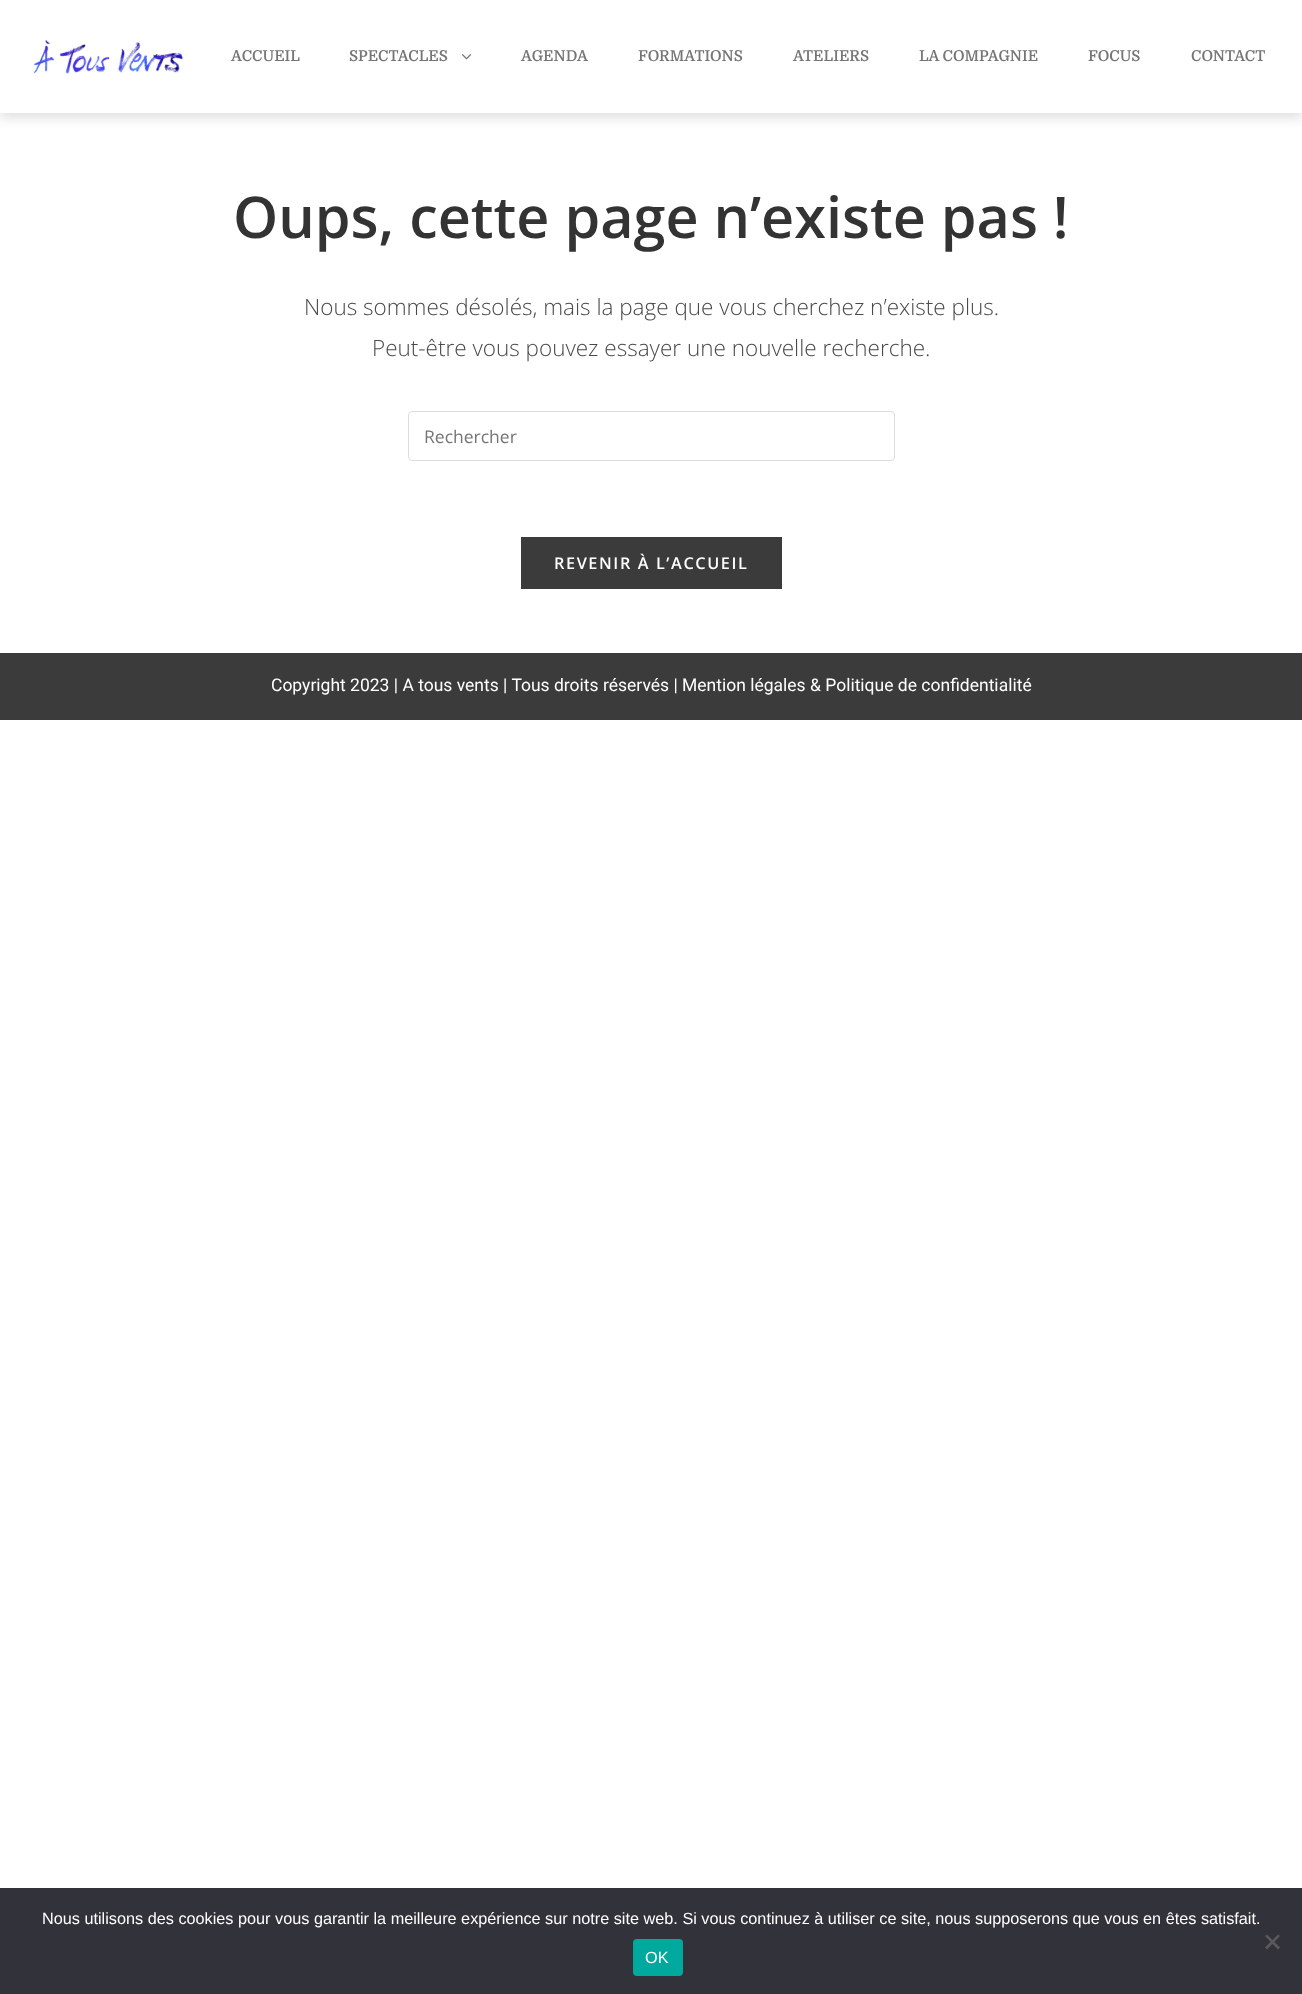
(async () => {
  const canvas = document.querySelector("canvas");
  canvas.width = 1302;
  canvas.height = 1994;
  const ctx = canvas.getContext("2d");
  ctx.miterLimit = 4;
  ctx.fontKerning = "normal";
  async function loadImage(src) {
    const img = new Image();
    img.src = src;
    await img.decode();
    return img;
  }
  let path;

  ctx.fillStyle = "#ffffff";
  ctx.fillRect(0, 0, 1302, 1994);
  ctx.fillStyle = "rgba(0, 0, 0, 0.12)";
  ctx.filter = "blur(6px)";
  ctx.beginPath();
  ctx.rect(0, 5, 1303, 113);
  ctx.fill();
  ctx.filter = "none";
  ctx.fillStyle = "#ffffff";
  ctx.fillRect(0, 0, 1302, 113);
  ctx.drawImage(await loadImage("img/1.png"), 33, 40, 150, 34);
  ctx.drawImage(await loadImage("img/2.png"), 462, 54, 9, 6);
  ctx.beginPath();
  ctx.roundRect(408.5, 411.5, 486, 49, 3.5);
  ctx.strokeStyle = "#dddddd";
  ctx.stroke();
  for (const [x, y, w, h, color] of [
    [521, 537, 261, 52, "#3b3b3b"],
    [0, 653, 1302, 67, "#3b3b3b"],
    [0, 1888, 1302, 106, "#32323a"],
  ]) {
    ctx.fillStyle = color;
    ctx.fillRect(x, y, w, h);
  }
  ctx.fillStyle = "#59595d";
  path = new Path2D("M1278 1934.5L1280 1936L1267 1949.5L1265 1947.5Z");
  ctx.fill(path);
  path = new Path2D("M1265 1936L1267 1934.5L1280 1947.5L1278 1949.5Z");
  ctx.fill(path);
  ctx.fillStyle = "#00a99d";
  ctx.beginPath();
  ctx.roundRect(633, 1939, 50, 37, 4);
  ctx.fill();
  ctx.font = "600 15px Domine";
  ctx.fillStyle = "#757575";
  for (const [text, x, y] of [
    ["ACCUEIL", 231, 61],
    ["SPECTACLES", 349, 61],
    ["AGENDA", 521, 61],
    ["FORMATIONS", 638, 61],
    ["ATELIERS", 793, 61],
    ["LA COMPAGNIE", 919, 61],
    ["FOCUS", 1088, 61],
    ["CONTACT", 1191, 61],
  ]) {
    ctx.fillText(text, x, y);
  }
  ctx.font = "600 57.5px Open Sans";
  ctx.fillStyle = "#333333";
  ctx.fillText("Oups, cette page n’existe pas !", 233, 238);
  ctx.font = "300 22.5px Open Sans";
  ctx.fillStyle = "#4a4a4a";
  ctx.fillText("Nous sommes désolés, mais la page que vous cherchez n’existe plus.", 304, 315);
  ctx.fillText("Peut-être vous pouvez essayer une nouvelle recherche.", 372, 356);
  ctx.font = "17.5px Open Sans";
  ctx.fillStyle = "#757575";
  ctx.fillText("Rechercher", 424, 443);
  ctx.letterSpacing = "1.6px";
  ctx.font = "600 16.25px Open Sans";
  ctx.fillStyle = "#ffffff";
  ctx.fillText("REVENIR À L’ACCUEIL", 554, 569);
  ctx.letterSpacing = "0px";
  ctx.font = "17.5px Roboto";
  ctx.fillText("Copyright 2023 | A tous vents | Tous droits réservés | Mention légales & Politique de confidentialité", 271, 691);
  ctx.font = "16.25px Liberation Sans";
  ctx.fillText("Nous utilisons des cookies pour vous garantir la meilleure expérience sur notre site web. Si vous continuez à utiliser ce site, nous supposerons que vous en êtes satisfait.", 42, 1924);
  ctx.fillText("OK", 645, 1963);
})();
